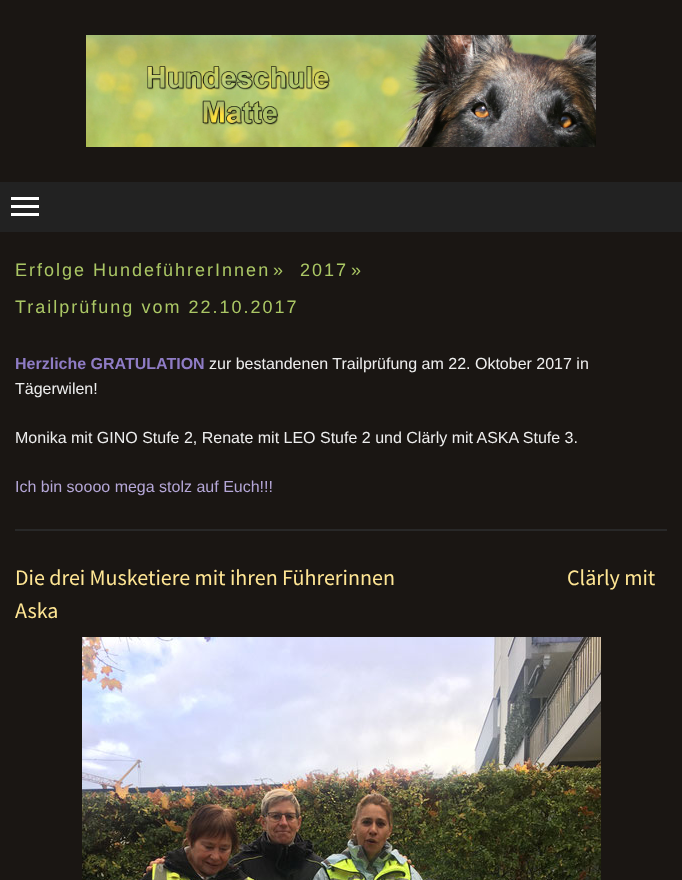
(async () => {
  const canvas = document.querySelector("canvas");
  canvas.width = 682;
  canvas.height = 880;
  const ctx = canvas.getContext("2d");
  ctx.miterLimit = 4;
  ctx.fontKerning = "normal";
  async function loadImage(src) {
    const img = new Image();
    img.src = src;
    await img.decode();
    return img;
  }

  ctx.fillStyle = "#1a1613";
  ctx.fillRect(0, 0, 682, 880);
  ctx.drawImage(await loadImage("img/1.png"), 86, 35, 510, 112);
  for (const [x, y, w, h, color] of [
    [0, 182, 682, 50, "#222222"],
    [11, 205, 28, 3, "#ffffff"],
    [11, 197, 28, 3, "#ffffff"],
    [11, 213, 28, 3, "#ffffff"],
    [15, 529, 652, 2, "#282828"],
  ]) {
    ctx.fillStyle = color;
    ctx.fillRect(x, y, w, h);
  }
  ctx.drawImage(await loadImage("img/2.png"), 82, 637, 519, 243);
  ctx.letterSpacing = "2px";
  ctx.font = "18px Liberation Sans";
  ctx.fillStyle = "#abc765";
  for (const [text, x, y] of [
    ["Erfolge HundeführerInnen", 15, 276],
    ["»", 273, 276],
    ["2017", 300, 276],
    ["»", 351, 276],
    ["Trailprüfung vom 22.10.2017", 15, 313],
  ]) {
    ctx.fillText(text, x, y);
  }
  ctx.letterSpacing = "0px";
  ctx.font = "bold 16px Liberation Sans";
  ctx.fillStyle = "#8f7cc5";
  ctx.fillText("Herzliche GRATULATION", 15, 369);
  ctx.font = "16px Liberation Sans";
  ctx.fillStyle = "#eeeeee";
  for (const [text, x, y] of [
    ["zur bestandenen Trailprüfung am 22. Oktober 2017 in", 209, 369],
    ["Tägerwilen!", 15, 394],
    ["Monika mit GINO Stufe 2, Renate mit LEO Stufe 2 und Clärly mit ASKA Stufe 3.", 15, 443],
  ]) {
    ctx.fillText(text, x, y);
  }
  ctx.fillStyle = "#b5a7d7";
  ctx.fillText("Ich bin soooo mega stolz auf Euch!!!", 15, 492);
  ctx.font = "22px Source Sans Pro";
  ctx.fillStyle = "#ffe694";
  for (const [text, x, y] of [
    ["Die drei Musketiere mit ihren Führerinnen", 15, 585],
    ["Clärly mit", 567, 585],
    ["Aska", 15, 618],
  ]) {
    ctx.fillText(text, x, y);
  }
})();
